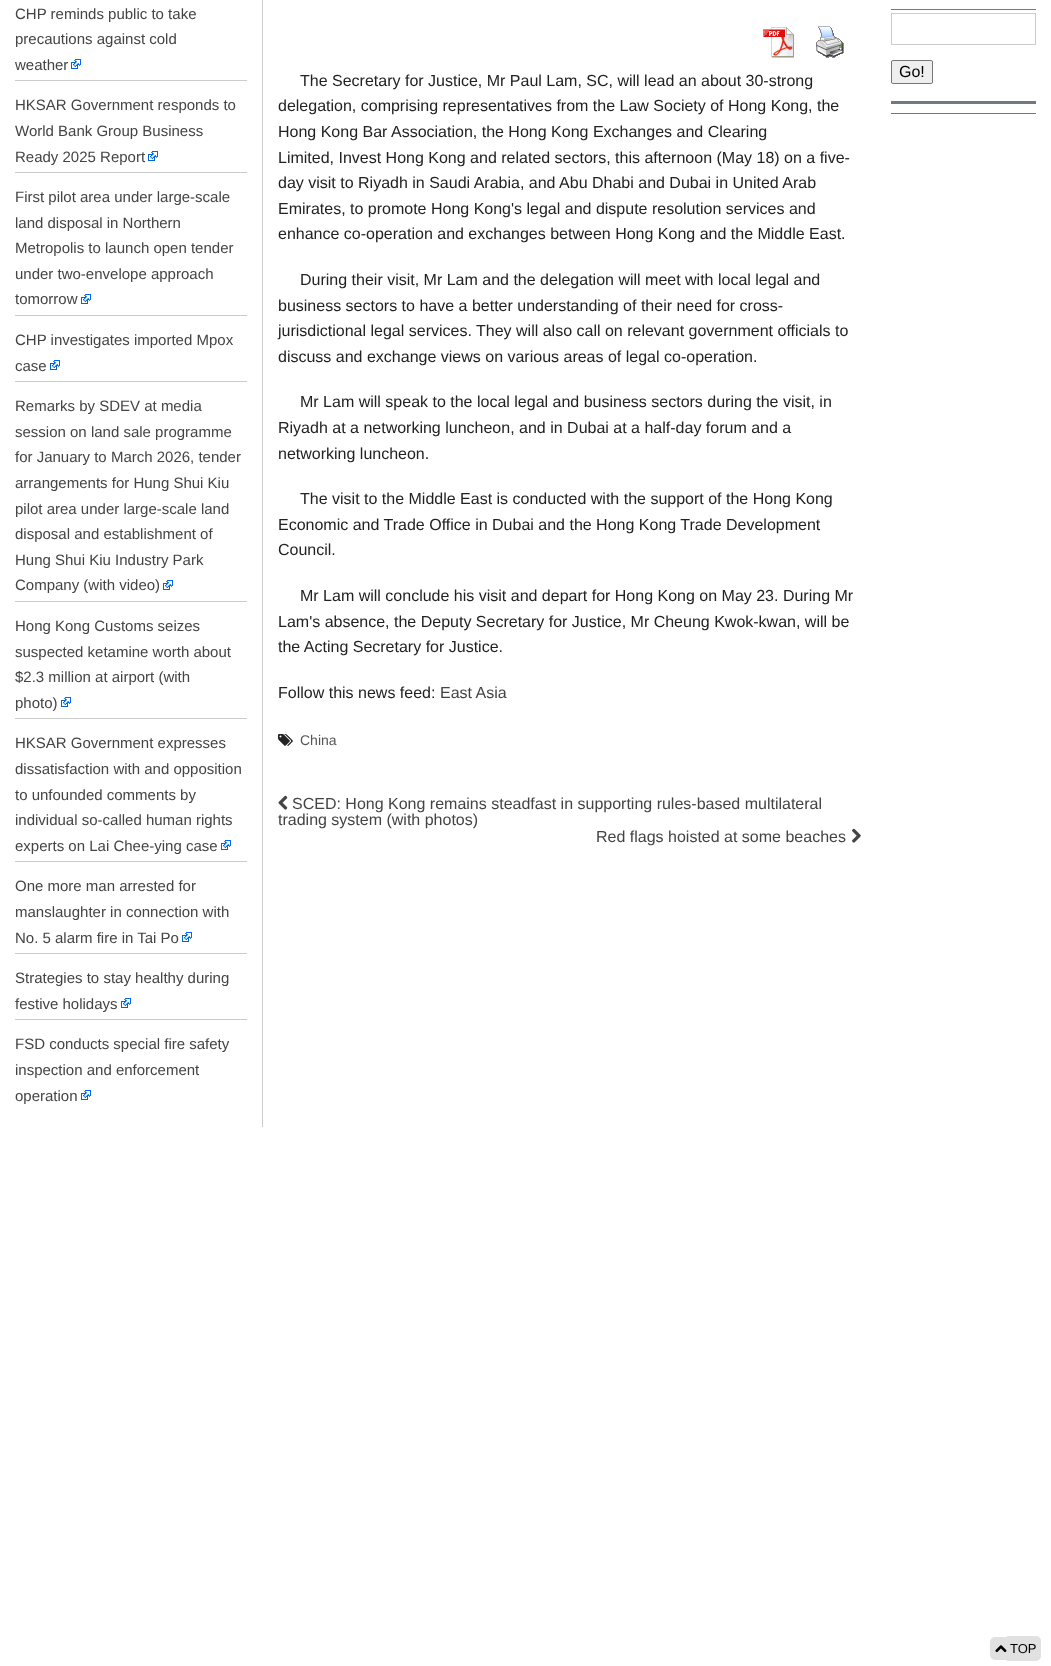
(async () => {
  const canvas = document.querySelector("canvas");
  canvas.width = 1051;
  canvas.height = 1666;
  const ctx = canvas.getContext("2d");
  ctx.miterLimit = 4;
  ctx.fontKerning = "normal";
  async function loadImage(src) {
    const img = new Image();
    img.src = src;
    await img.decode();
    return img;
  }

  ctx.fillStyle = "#ffffff";
  ctx.fillRect(0, 0, 1051, 1666);
  ctx.fillStyle = "#cccccc";
  ctx.fillRect(262, 0, 1, 1127);
  ctx.fillRect(15, 80, 232, 1);
  ctx.drawImage(await loadImage("img/1.png"), 71, 59, 10, 10);
  ctx.fillRect(15, 172, 232, 1);
  ctx.drawImage(await loadImage("img/1.png"), 148, 151, 10, 10);
  ctx.fillRect(15, 315, 232, 1);
  ctx.drawImage(await loadImage("img/1.png"), 81, 294, 10, 10);
  ctx.fillRect(15, 381, 232, 1);
  ctx.drawImage(await loadImage("img/1.png"), 50, 360, 10, 10);
  ctx.fillRect(15, 601, 232, 1);
  ctx.drawImage(await loadImage("img/1.png"), 163, 580, 10, 10);
  ctx.fillRect(15, 718, 232, 1);
  ctx.drawImage(await loadImage("img/1.png"), 61, 697, 10, 10);
  ctx.fillRect(15, 861, 232, 1);
  ctx.drawImage(await loadImage("img/1.png"), 221, 840, 10, 10);
  ctx.fillRect(15, 953, 232, 1);
  ctx.drawImage(await loadImage("img/1.png"), 182, 932, 10, 10);
  ctx.fillRect(15, 1019, 232, 1);
  ctx.drawImage(await loadImage("img/1.png"), 121, 998, 10, 10);
  ctx.drawImage(await loadImage("img/1.png"), 81, 1090, 10, 10);
  ctx.fillStyle = "#6b7b84";
  ctx.fillRect(891, 9, 145, 1);
  ctx.strokeStyle = "#cccccc";
  ctx.strokeRect(891.5, 13.5, 144, 31);
  ctx.fillStyle = "#efefef";
  ctx.beginPath();
  ctx.roundRect(891.5, 60.5, 41, 23, 1.5);
  ctx.fill();
  ctx.strokeStyle = "#767676";
  ctx.stroke();
  ctx.fillStyle = "#6b7b84";
  ctx.fillRect(891, 101, 145, 3);
  ctx.fillRect(891, 113, 145, 1);
  ctx.drawImage(await loadImage("img/2.png"), 763, 27, 31, 31);
  ctx.drawImage(await loadImage("img/3.png"), 816, 26, 28, 32);
  ctx.drawImage(await loadImage("img/4.png"), 278, 734, 15, 12);
  ctx.drawImage(await loadImage("img/5.png"), 278, 795, 10, 15);
  ctx.drawImage(await loadImage("img/6.png"), 852, 828, 9, 15);
  ctx.fillStyle = "#e1e1e1";
  ctx.beginPath();
  ctx.roundRect(990, 1637, 17, 23, [5, 0, 0, 5]);
  ctx.fill();
  ctx.beginPath();
  ctx.roundRect(1007, 1636, 34, 25, [0, 5, 5, 0]);
  ctx.fill();
  ctx.drawImage(await loadImage("img/7.png"), 995, 1645, 12, 8);
  ctx.font = "15px Liberation Sans";
  ctx.fillStyle = "#444444";
  for (const [text, x, y] of [
    ["CHP reminds public to take", 15, 19],
    ["precautions against cold", 15, 44],
    ["weather", 15, 70],
    ["HKSAR Government responds to", 15, 110],
    ["World Bank Group Business", 15, 136],
    ["Ready 2025 Report", 15, 162],
    ["First pilot area under large-scale", 15, 202],
    ["land disposal in Northern", 15, 228],
    ["Metropolis to launch open tender", 15, 253],
    ["under two-envelope approach", 15, 279],
    ["tomorrow", 15, 304],
    ["CHP investigates imported Mpox", 15, 345],
    ["case", 15, 371],
    ["Remarks by SDEV at media", 15, 411],
    ["session on land sale programme", 15, 437],
    ["for January to March 2026, tender", 15, 462],
    ["arrangements for Hung Shui Kiu", 15, 488],
    ["pilot area under large-scale land", 15, 514],
    ["disposal and establishment of", 15, 539],
    ["Hung Shui Kiu Industry Park", 15, 565],
    ["Company (with video)", 15, 590],
    ["Hong Kong Customs seizes", 15, 631],
    ["suspected ketamine worth about", 15, 657],
    ["$2.3 million at airport (with", 15, 682],
    ["photo)", 15, 708],
    ["HKSAR Government expresses", 15, 748],
    ["dissatisfaction with and opposition", 15, 774],
    ["to unfounded comments by", 15, 800],
    ["individual so-called human rights", 15, 825],
    ["experts on Lai Chee-ying case", 15, 851],
    ["One more man arrested for", 15, 891],
    ["manslaughter in connection with", 15, 917],
    ["No. 5 alarm fire in Tai Po", 15, 943],
    ["Strategies to stay healthy during", 15, 983],
    ["festive holidays", 15, 1009],
    ["FSD conducts special fire safety", 15, 1049],
    ["inspection and enforcement", 15, 1075],
    ["operation", 15, 1101],
  ]) {
    ctx.fillText(text, x, y);
  }
  ctx.font = "16px Liberation Sans";
  ctx.fillStyle = "#000000";
  ctx.fillText("Go!", 899, 77);
  ctx.fillStyle = "#222222";
  for (const [text, x, y] of [
    ["The Secretary for Justice, Mr Paul Lam, SC, will lead an about 30-strong", 300, 86],
    ["delegation, comprising representatives from the Law Society of Hong Kong, the", 278, 111],
    ["Hong Kong Bar Association, the Hong Kong Exchanges and Clearing", 278, 137],
    ["Limited, Invest Hong Kong and related sectors, this afternoon (May 18) on a five-", 278, 163],
    ["day visit to Riyadh in Saudi Arabia, and Abu Dhabi and Dubai in United Arab", 278, 188],
    ["Emirates, to promote Hong Kong's legal and dispute resolution services and", 278, 214],
    ["enhance co-operation and exchanges between Hong Kong and the Middle East.", 278, 239],
    ["During their visit, Mr Lam and the delegation will meet with local legal and", 300, 285],
    ["business sectors to have a better understanding of their need for cross-", 278, 311],
    ["jurisdictional legal services. They will also call on relevant government officials to", 278, 336],
    ["discuss and exchange views on various areas of legal co-operation.", 278, 362],
    ["Mr Lam will speak to the local legal and business sectors during the visit, in", 300, 407],
    ["Riyadh at a networking luncheon, and in Dubai at a half-day forum and a", 278, 433],
    ["networking luncheon.", 278, 459],
    ["The visit to the Middle East is conducted with the support of the Hong Kong", 300, 504],
    ["Economic and Trade Office in Dubai and the Hong Kong Trade Development", 278, 530],
    ["Council.", 278, 555],
    ["Mr Lam will conclude his visit and depart for Hong Kong on May 23. During Mr", 300, 601],
    ["Lam's absence, the Deputy Secretary for Justice, Mr Cheung Kwok-kwan, will be", 278, 627],
    ["the Acting Secretary for Justice.", 278, 652],
    ["Follow this news feed:", 278, 698],
  ]) {
    ctx.fillText(text, x, y);
  }
  ctx.fillStyle = "#444444";
  ctx.fillText("East Asia", 440, 698);
  ctx.font = "14px Liberation Sans";
  ctx.fillStyle = "#555555";
  ctx.fillText("China", 300, 745);
  ctx.font = "16px Liberation Sans";
  ctx.fillStyle = "#444444";
  for (const [text, x, y] of [
    ["SCED: Hong Kong remains steadfast in supporting rules-based multilateral", 292, 809],
    ["trading system (with photos)", 278, 825],
    ["Red flags hoisted at some beaches", 596, 842],
  ]) {
    ctx.fillText(text, x, y);
  }
  ctx.font = "13px Liberation Sans";
  ctx.fillStyle = "#000000";
  ctx.fillText("TOP", 1010, 1653);
})();
